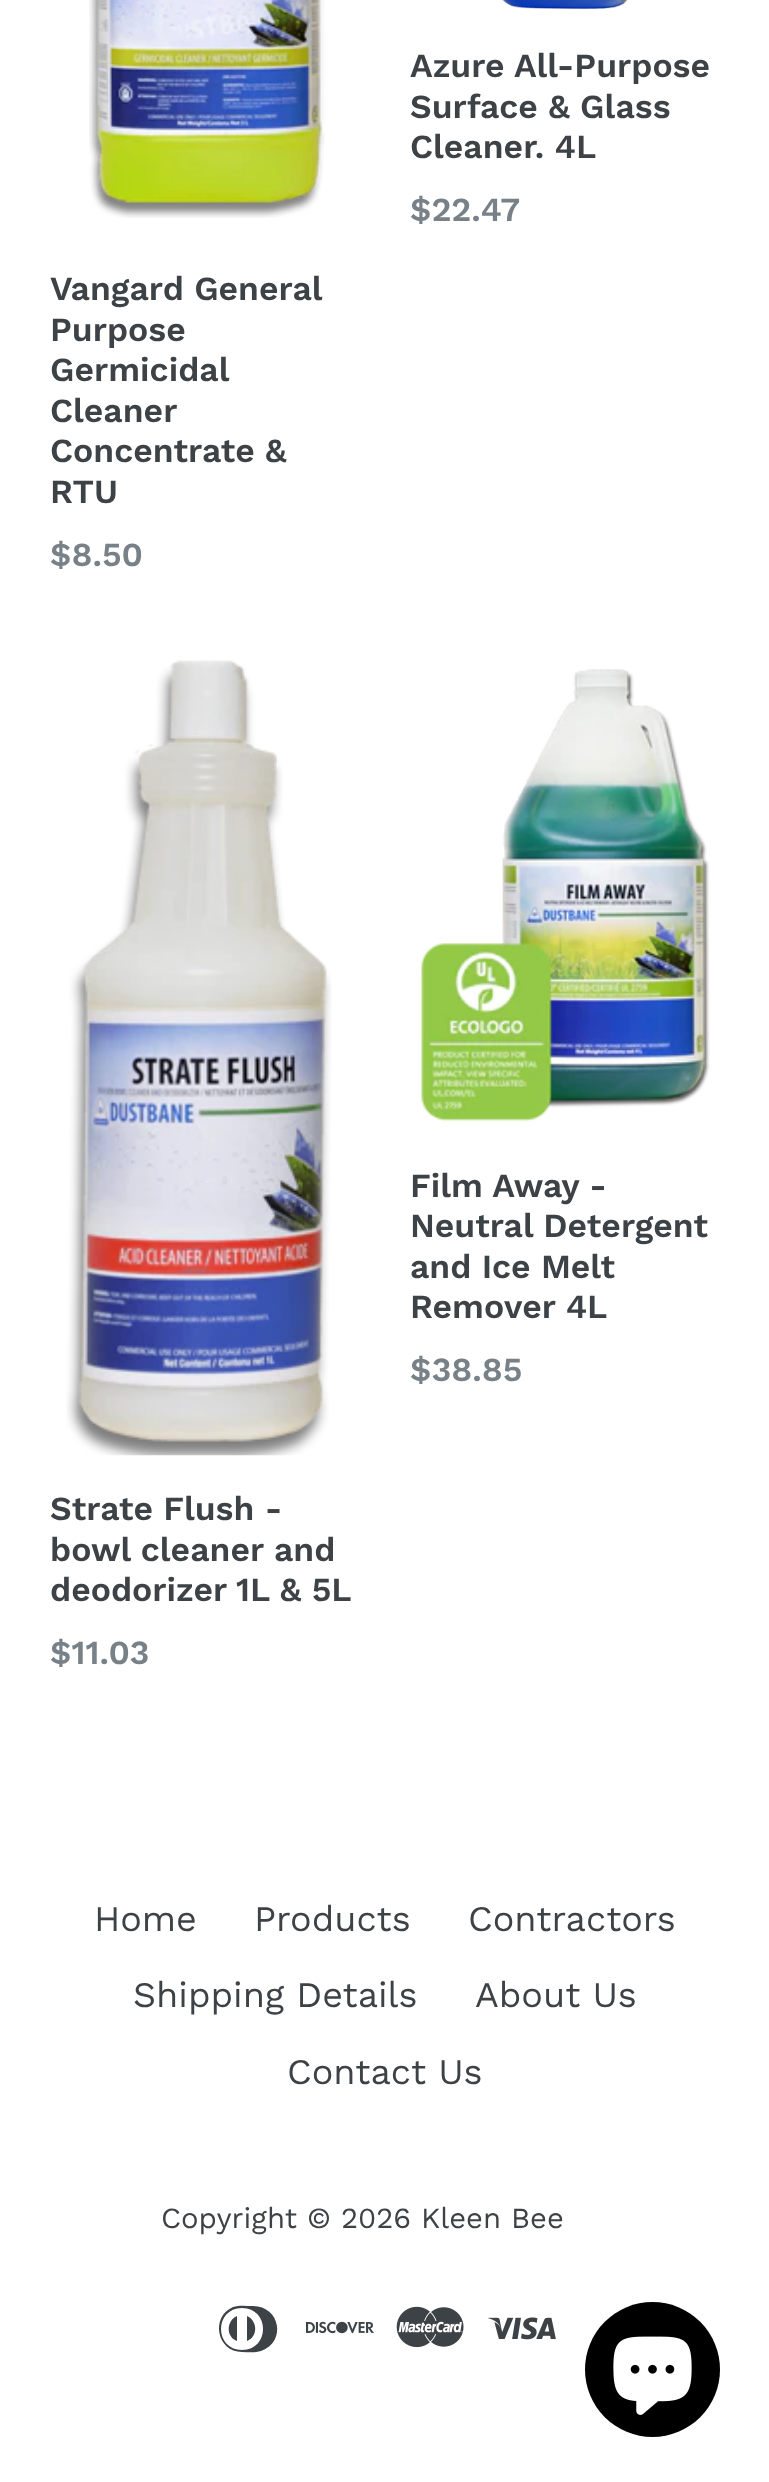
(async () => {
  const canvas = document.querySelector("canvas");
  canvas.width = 769;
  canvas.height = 2482;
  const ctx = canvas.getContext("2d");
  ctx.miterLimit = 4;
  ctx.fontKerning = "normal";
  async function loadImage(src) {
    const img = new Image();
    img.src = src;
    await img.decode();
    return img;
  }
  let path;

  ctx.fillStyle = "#ffffff";
  ctx.fillRect(0, 0, 769, 2482);
  ctx.drawImage(await loadImage("img/1.png"), 502, 0, 126, 9);
  ctx.drawImage(await loadImage("img/2.png"), 89, 0, 236, 218);
  ctx.drawImage(await loadImage("img/3.png"), 421, 669, 289, 453);
  ctx.drawImage(await loadImage("img/4.png"), 66, 660, 266, 796);
  ctx.fillStyle = "#3d4246";
  path = new Path2D("M253 2306C280 2306 287 2342 261 2351C255 2353 248 2352 242 2352C217 2352 210 2317 233 2307C239 2305 247 2306 253 2306ZM242 2350C270 2350 270 2308 242 2308C214 2308 214 2350 242 2350ZM237 2341C226 2337 226 2321 237 2316ZM247 2316C258 2321 258 2337 247 2341Z");
  ctx.fill(path);
  ctx.drawImage(await loadImage("img/5.png"), 306, 2321, 68, 13);
  ctx.drawImage(await loadImage("img/6.png"), 396, 2306, 68, 42);
  ctx.drawImage(await loadImage("img/7.png"), 488, 2317, 68, 23);
  ctx.fillStyle = "#000000";
  ctx.beginPath();
  ctx.arc(652.5, 2369.5, 67.5, 0, Math.PI * 2);
  ctx.fill();
  ctx.drawImage(await loadImage("img/8.png"), 613, 2336, 79, 79);
  ctx.font = "600 33.75px Work Sans";
  ctx.fillStyle = "#3d4246";
  for (const [text, x, y] of [
    ["Azure All-Purpose", 410, 77],
    ["Surface & Glass", 410, 118],
    ["Cleaner. 4L", 410, 158],
  ]) {
    ctx.fillText(text, x, y);
  }
  ctx.fillStyle = "#788188";
  ctx.fillText("$22.47", 410, 221);
  ctx.fillStyle = "#3d4246";
  for (const [text, x, y] of [
    ["Vangard General", 50, 300],
    ["Purpose", 50, 341],
    ["Germicidal", 50, 381],
    ["Cleaner", 50, 422],
    ["Concentrate &", 50, 462],
    ["RTU", 50, 503],
  ]) {
    ctx.fillText(text, x, y);
  }
  ctx.fillStyle = "#788188";
  ctx.fillText("$8.50", 50, 566);
  ctx.fillStyle = "#3d4246";
  for (const [text, x, y] of [
    ["Film Away -", 410, 1197],
    ["Neutral Detergent", 410, 1237],
    ["and Ice Melt", 410, 1278],
    ["Remover 4L", 410, 1318],
  ]) {
    ctx.fillText(text, x, y);
  }
  ctx.fillStyle = "#788188";
  ctx.fillText("$38.85", 410, 1381);
  ctx.fillStyle = "#3d4246";
  for (const [text, x, y] of [
    ["Strate Flush -", 50, 1520],
    ["bowl cleaner and", 50, 1561],
    ["deodorizer", 50, 1601],
    ["1L & 5L", 236, 1601],
  ]) {
    ctx.fillText(text, x, y);
  }
  ctx.fillStyle = "#788188";
  ctx.fillText("$11.03", 50, 1664);
  ctx.font = "36px Work Sans";
  ctx.fillStyle = "#3d4246";
  for (const [text, x, y] of [
    ["Home", 94, 1931],
    ["Products", 254, 1931],
    ["Contractors", 468, 1931],
    ["Shipping Details", 133, 2007],
    ["About Us", 475, 2007],
    ["Contact Us", 287, 2084],
  ]) {
    ctx.fillText(text, x, y);
  }
  ctx.font = "29.25px Work Sans";
  ctx.fillText("Copyright © 2026 Kleen Bee", 161, 2228);
})();
